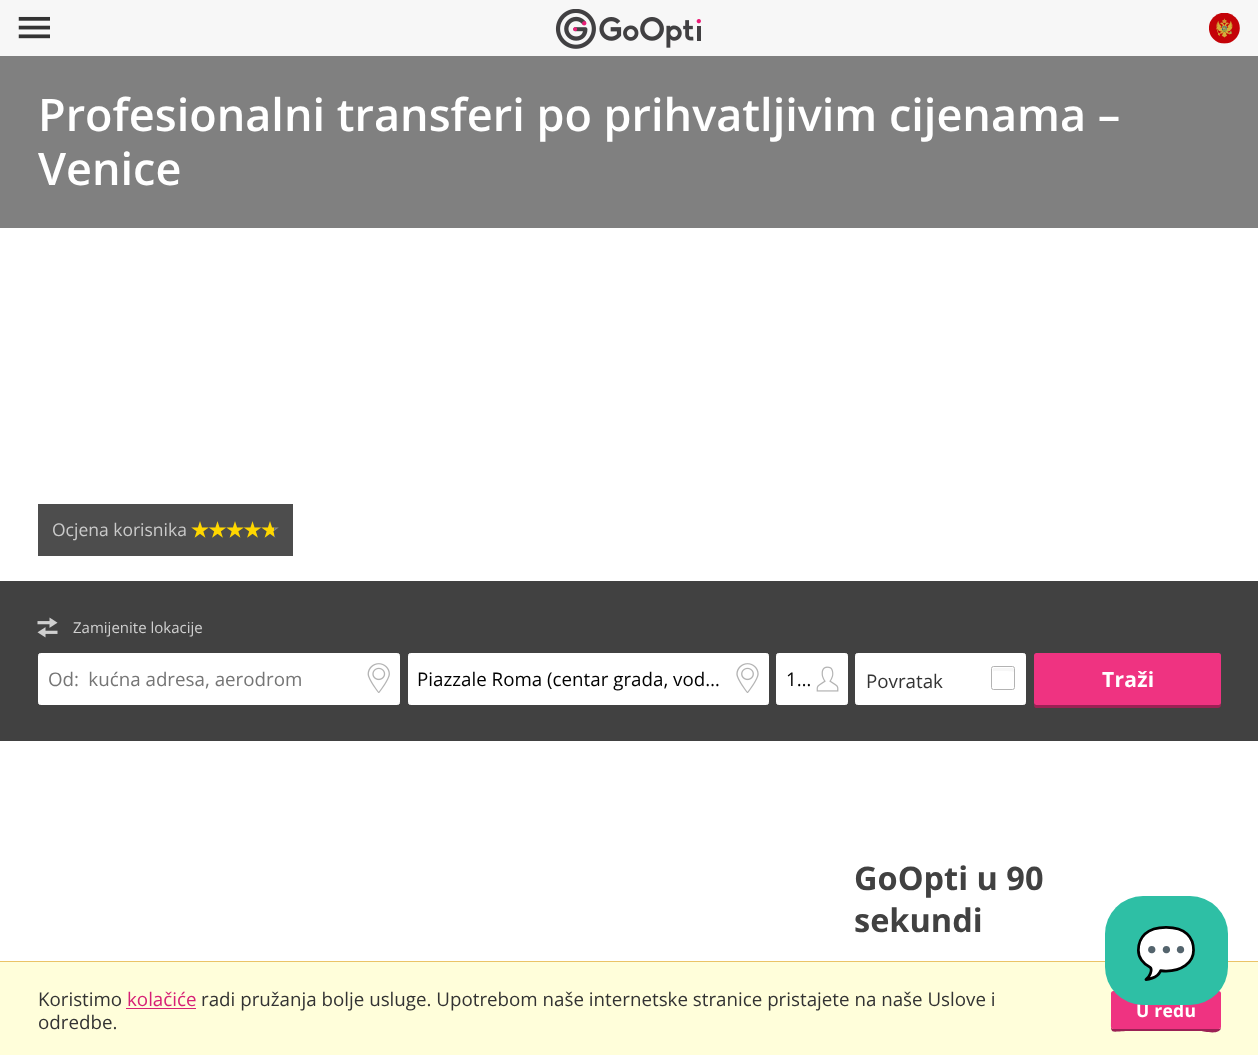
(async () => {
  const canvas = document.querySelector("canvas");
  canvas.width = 1258;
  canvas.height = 1055;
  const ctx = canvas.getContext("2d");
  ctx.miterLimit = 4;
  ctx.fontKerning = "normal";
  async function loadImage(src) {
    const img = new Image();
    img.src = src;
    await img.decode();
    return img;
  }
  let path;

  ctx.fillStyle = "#ffffff";
  ctx.fillRect(0, 0, 1258, 1055);
  ctx.fillStyle = "#808080";
  ctx.fillRect(0, 56, 1258, 172);
  ctx.fillStyle = "#4d4d4d";
  ctx.fillRect(38, 504, 255, 52);
  ctx.drawImage(await loadImage("img/1.png"), 191, 521, 83, 17);
  ctx.drawImage(await loadImage("img/2.png"), 274, 527, 5, 11);
  ctx.fillStyle = "#414141";
  ctx.fillRect(0, 581, 1258, 160);
  ctx.drawImage(await loadImage("img/3.png"), 37, 617, 21, 21);
  ctx.fillStyle = "#ffffff";
  ctx.beginPath();
  ctx.roundRect(38.5, 653.5, 361, 51, 2);
  ctx.fill();
  ctx.strokeStyle = "#ffffff";
  ctx.stroke();
  ctx.drawImage(await loadImage("img/4.png"), 367, 663, 23, 30);
  ctx.beginPath();
  ctx.roundRect(408.5, 653.5, 360, 51, 2);
  ctx.fill();
  ctx.stroke();
  ctx.drawImage(await loadImage("img/5.png"), 736, 663, 23, 30);
  ctx.beginPath();
  ctx.roundRect(776.5, 653.5, 71, 51, 2);
  ctx.fill();
  ctx.stroke();
  ctx.drawImage(await loadImage("img/6.png"), 816, 666, 23, 26);
  ctx.beginPath();
  ctx.roundRect(855.5, 653.5, 170, 51, 2);
  ctx.fill();
  ctx.stroke();
  ctx.fillStyle = "#f7f7f7";
  path = new Path2D("M994 671C996 671 1013 671 1014 672C1014 667.5 1014.5 668 1010 668H997C992.5 668 993 667.5 993 671.5Z");
  ctx.fill(path);
  ctx.beginPath();
  ctx.roundRect(991.5, 666.5, 23, 23, 2);
  ctx.strokeStyle = "#b3b3b3";
  ctx.stroke();
  ctx.fillStyle = "#9b2154";
  path = new Path2D("M1034 704C1034 705 1034 708 1036 708H1218C1221 708 1221 705 1221 704C1221 704 1220 705 1219 705H1036C1035 705 1034 704 1034 704Z");
  ctx.fill(path);
  ctx.fillStyle = "#ef3381";
  ctx.beginPath();
  ctx.roundRect(1034, 653, 187, 52, 2.5);
  ctx.fill();
  ctx.fillStyle = "#f7f7f7";
  ctx.fillRect(0, 0, 1258, 56);
  ctx.drawImage(await loadImage("img/7.png"), 18, 16, 32, 23);
  ctx.drawImage(await loadImage("img/8.png"), 555, 9, 146, 40);
  ctx.drawImage(await loadImage("img/9.png"), 1209, 13, 31, 31);
  for (const [x, y, w, h, color] of [
    [0, 962, 1258, 93, "#fffeda"],
    [0, 961, 1258, 1, "#eac367"],
    [126, 1008, 70, 1, "#d72076"],
  ]) {
    ctx.fillStyle = color;
    ctx.fillRect(x, y, w, h);
  }
  ctx.fillStyle = "#9b2154";
  path = new Path2D("M1111 995V1018C1111 1036 1109 1031 1131 1031H1201C1203 1031 1221 1036 1221 1027C1221 1028 1220 1029 1219 1029H1114C1112 1029 1111 1028 1111 1026Z");
  ctx.fill(path);
  ctx.fillStyle = "#ef3381";
  ctx.beginPath();
  ctx.roundRect(1111, 991, 110, 38, 2.5);
  ctx.fill();
  ctx.font = "600 45px Open Sans";
  ctx.fillStyle = "#ffffff";
  ctx.fillText("Profesionalni transferi po prihvatljivim cijenama –", 38, 131);
  ctx.fillText("Venice", 38, 185);
  ctx.font = "17.5px Open Sans";
  ctx.fillStyle = "#cacaca";
  ctx.fillText("Ocjena korisnika", 52, 536);
  ctx.font = "15px Open Sans";
  ctx.fillStyle = "#d0d0d0";
  ctx.fillText("Zamijenite lokacije", 73, 633);
  ctx.font = "18.75px Open Sans";
  ctx.fillStyle = "#757575";
  ctx.fillText("Od: kućna adresa, aerodrom", 48, 686);
  ctx.fillStyle = "#000000";
  ctx.fillText("Piazzale Roma (centar grada, vod…", 417, 686);
  ctx.fillText("1…", 786, 686);
  ctx.fillStyle = "#333333";
  ctx.fillText("Povratak", 866, 688);
  ctx.letterSpacing = "0.25px";
  ctx.font = "bold 21px Open Sans";
  ctx.fillStyle = "#ffffff";
  ctx.fillText("Traži", 1102, 687);
  ctx.letterSpacing = "0px";
  ctx.font = "bold 32.5px Open Sans";
  ctx.fillStyle = "#414141";
  ctx.fillText("GoOpti u 90", 854, 890);
  ctx.fillText("sekundi", 854, 932);
  ctx.font = "18.75px Open Sans";
  ctx.fillStyle = "#333333";
  ctx.fillText("Koristimo", 38, 1006);
  ctx.fillStyle = "#d72076";
  ctx.fillText("kolačiće", 127, 1006);
  ctx.fillStyle = "#333333";
  ctx.fillText("radi pružanja bolje usluge. Upotrebom naše internetske stranice pristajete na naše Uslove i", 201, 1006);
  ctx.fillText("odredbe.", 38, 1029);
  ctx.letterSpacing = "0.25px";
  ctx.font = "bold 17.5px Open Sans";
  ctx.fillStyle = "#ffffff";
  ctx.fillText("U redu", 1136, 1017);
  ctx.fillStyle = "#2ebfa5";
  ctx.beginPath();
  ctx.roundRect(1105, 896, 123, 109, 38);
  ctx.fill();
  ctx.letterSpacing = "0px";
  ctx.font = "50px Noto Color Emoji";
  ctx.fillStyle = "#ffffff";
  ctx.fillText("💬", 1135, 970);
})();
